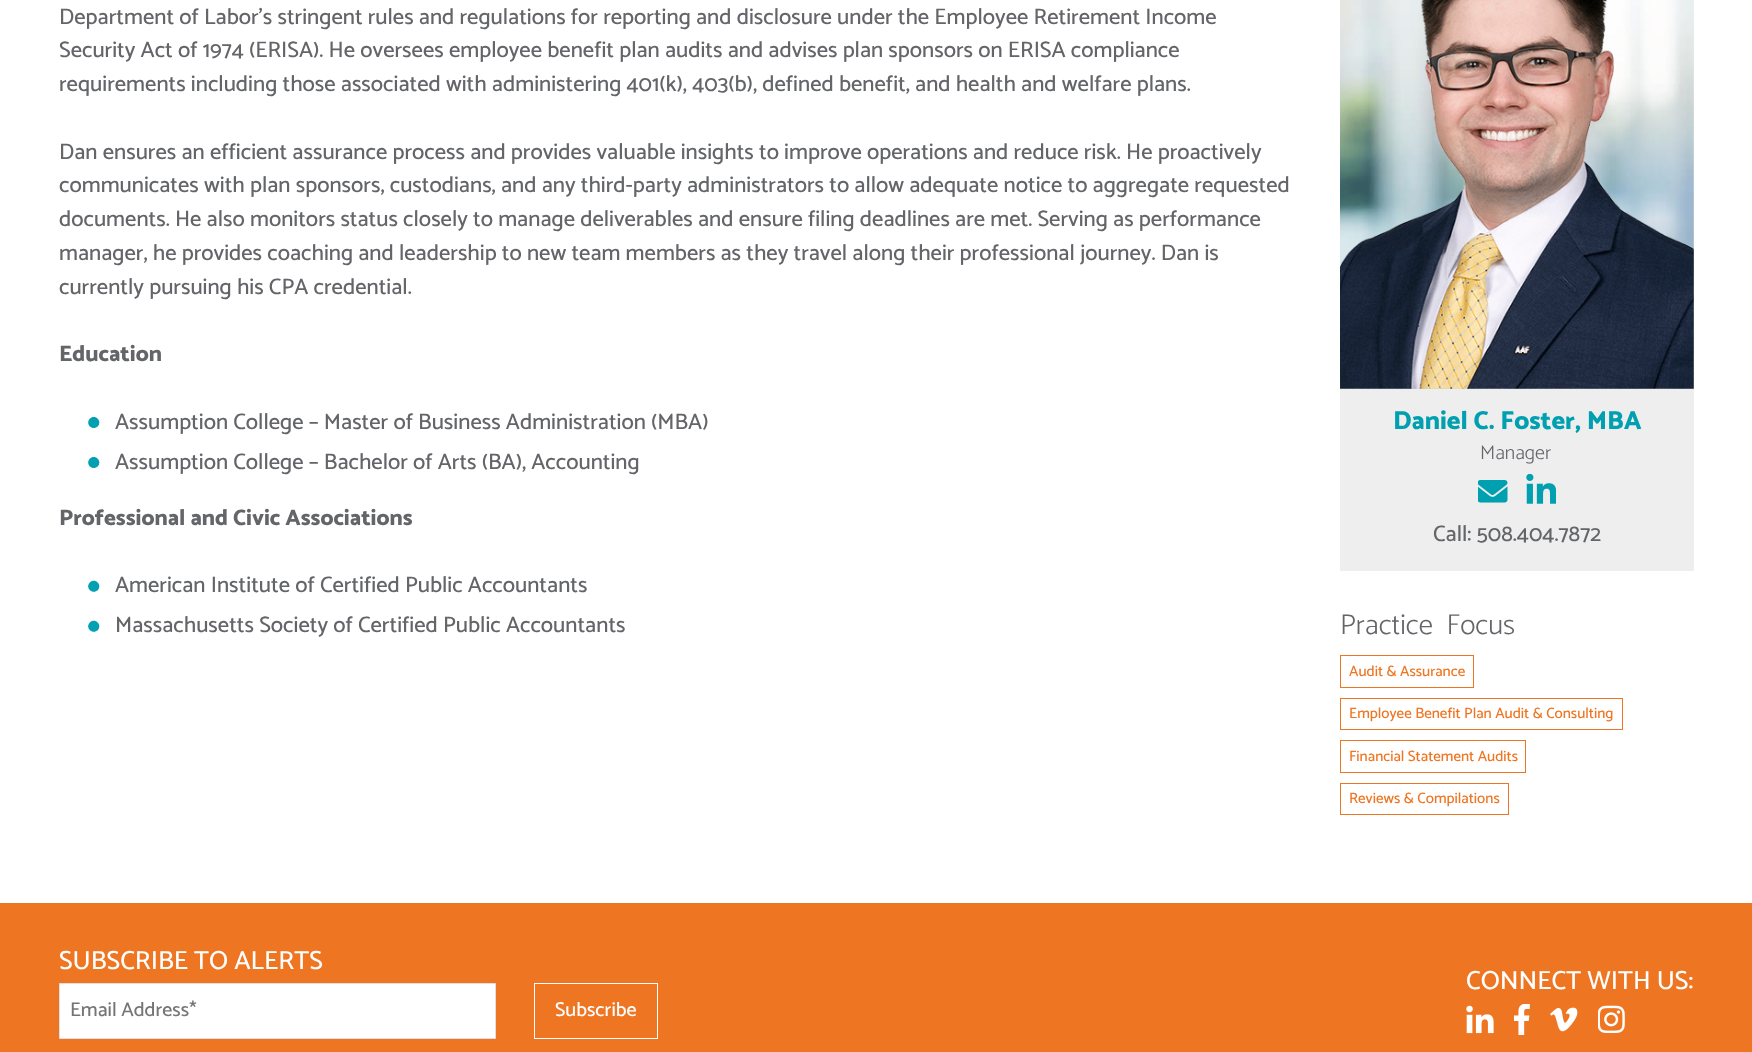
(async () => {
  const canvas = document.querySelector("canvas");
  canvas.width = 1752;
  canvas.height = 1052;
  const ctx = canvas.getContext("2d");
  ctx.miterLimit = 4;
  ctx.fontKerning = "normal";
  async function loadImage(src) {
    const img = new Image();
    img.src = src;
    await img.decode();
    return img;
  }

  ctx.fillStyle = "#ffffff";
  ctx.fillRect(0, 0, 1752, 1052);
  ctx.drawImage(await loadImage("img/1.png"), 88, 417, 12, 11);
  ctx.drawImage(await loadImage("img/2.png"), 88, 457, 12, 11);
  ctx.drawImage(await loadImage("img/3.png"), 88, 580, 12, 12);
  ctx.drawImage(await loadImage("img/3.png"), 88, 620, 12, 12);
  ctx.fillStyle = "#eeeeee";
  ctx.fillRect(1340, 0, 354, 571);
  ctx.drawImage(await loadImage("img/4.png"), 1340, 0, 354, 389);
  ctx.drawImage(await loadImage("img/5.png"), 1340, 0, 354, 389);
  ctx.drawImage(await loadImage("img/6.png"), 1478, 480, 30, 23);
  ctx.drawImage(await loadImage("img/7.png"), 1526, 474, 30, 30);
  ctx.strokeStyle = "#ee7623";
  ctx.strokeRect(1340.5, 655.5, 133, 32);
  ctx.strokeRect(1340.5, 698.5, 282, 31);
  ctx.strokeRect(1340.5, 740.5, 185, 32);
  ctx.strokeRect(1340.5, 783.5, 168, 31);
  ctx.fillStyle = "#ee7623";
  ctx.fillRect(0, 903, 1752, 149);
  ctx.fillStyle = "#ffffff";
  ctx.beginPath();
  ctx.rect(59.5, 983.5, 436, 55);
  ctx.fill();
  ctx.strokeStyle = "#e1e0e0";
  ctx.stroke();
  ctx.strokeStyle = "#ffffff";
  ctx.strokeRect(534.5, 983.5, 123, 55);
  ctx.drawImage(await loadImage("img/8.png"), 1466, 1005, 28, 29);
  ctx.drawImage(await loadImage("img/9.png"), 1514, 1004, 16, 31);
  ctx.drawImage(await loadImage("img/10.png"), 1550, 1007, 28, 25);
  ctx.drawImage(await loadImage("img/11.png"), 1598, 1005, 27, 29);
  ctx.font = "500 22.5px Catamaran";
  ctx.fillStyle = "#646569";
  for (const [text, x, y] of [
    ["Department of Labor’s stringent rules and regulations for reporting and disclosure under the Employee Retirement Income", 59, 24],
    ["Security Act of 1974 (ERISA). He oversees employee benefit plan audits and advises plan sponsors on ERISA compliance", 59, 57],
    ["requirements including those associated with administering 401(k), 403(b), defined benefit, and health and welfare plans.", 59, 91],
    ["Dan ensures an efficient assurance process and provides valuable insights to improve operations and reduce risk. He proactively", 59, 159],
    ["communicates with plan sponsors, custodians, and any third-party administrators to allow adequate notice to aggregate requested", 59, 192],
    ["documents. He also monitors status closely to manage deliverables and ensure filing deadlines are met. Serving as performance", 59, 226],
    ["manager, he provides coaching and leadership to new team members as they travel along their professional journey. Dan is", 59, 260],
    ["currently pursuing his CPA credential.", 59, 294],
  ]) {
    ctx.fillText(text, x, y);
  }
  ctx.font = "800 22.5px Catamaran";
  ctx.fillText("Education", 59, 361);
  ctx.font = "500 22.5px Catamaran";
  ctx.fillText("Assumption College – Master of Business Administration (MBA)", 115, 429);
  ctx.fillText("Assumption College – Bachelor of Arts (BA), Accounting", 115, 469);
  ctx.font = "800 22.5px Catamaran";
  ctx.fillText("Professional and Civic Associations", 59, 525);
  ctx.font = "500 22.5px Catamaran";
  ctx.fillText("American Institute of Certified Public Accountants", 115, 592);
  ctx.fillText("Massachusetts Society of Certified Public Accountants", 115, 632);
  ctx.font = "800 26px Catamaran";
  ctx.fillStyle = "#00a0b0";
  ctx.fillText("Daniel C. Foster, MBA", 1393, 429);
  ctx.font = "300 20px Catamaran";
  ctx.fillStyle = "#646569";
  ctx.fillText("Manager", 1480, 459);
  ctx.font = "500 22.5px Catamaran";
  ctx.fillText("Call: 508.404.7872", 1433, 541);
  ctx.wordSpacing = "7px";
  ctx.font = "300 28.75px Catamaran";
  ctx.fillText("Practice Focus", 1340, 634);
  ctx.wordSpacing = "0px";
  ctx.font = "500 15px Catamaran";
  ctx.fillStyle = "#ee7623";
  for (const [text, x, y] of [
    ["Audit & Assurance", 1349, 676],
    ["Employee Benefit Plan Audit & Consulting", 1349, 718],
    ["Financial Statement Audits", 1349, 761],
    ["Reviews & Compilations", 1349, 803],
  ]) {
    ctx.fillText(text, x, y);
  }
  ctx.font = "500 26.25px Catamaran";
  ctx.fillStyle = "#ffffff";
  ctx.fillText("SUBSCRIBE TO ALERTS", 59, 969);
  ctx.font = "500 20px Catamaran";
  ctx.fillStyle = "#757575";
  ctx.fillText("Email Address*", 70, 1016);
  ctx.fillStyle = "#ffffff";
  ctx.fillText("Subscribe", 555, 1016);
  ctx.font = "500 26.25px Catamaran";
  ctx.fillText("CONNECT WITH US:", 1466, 989);
})();
